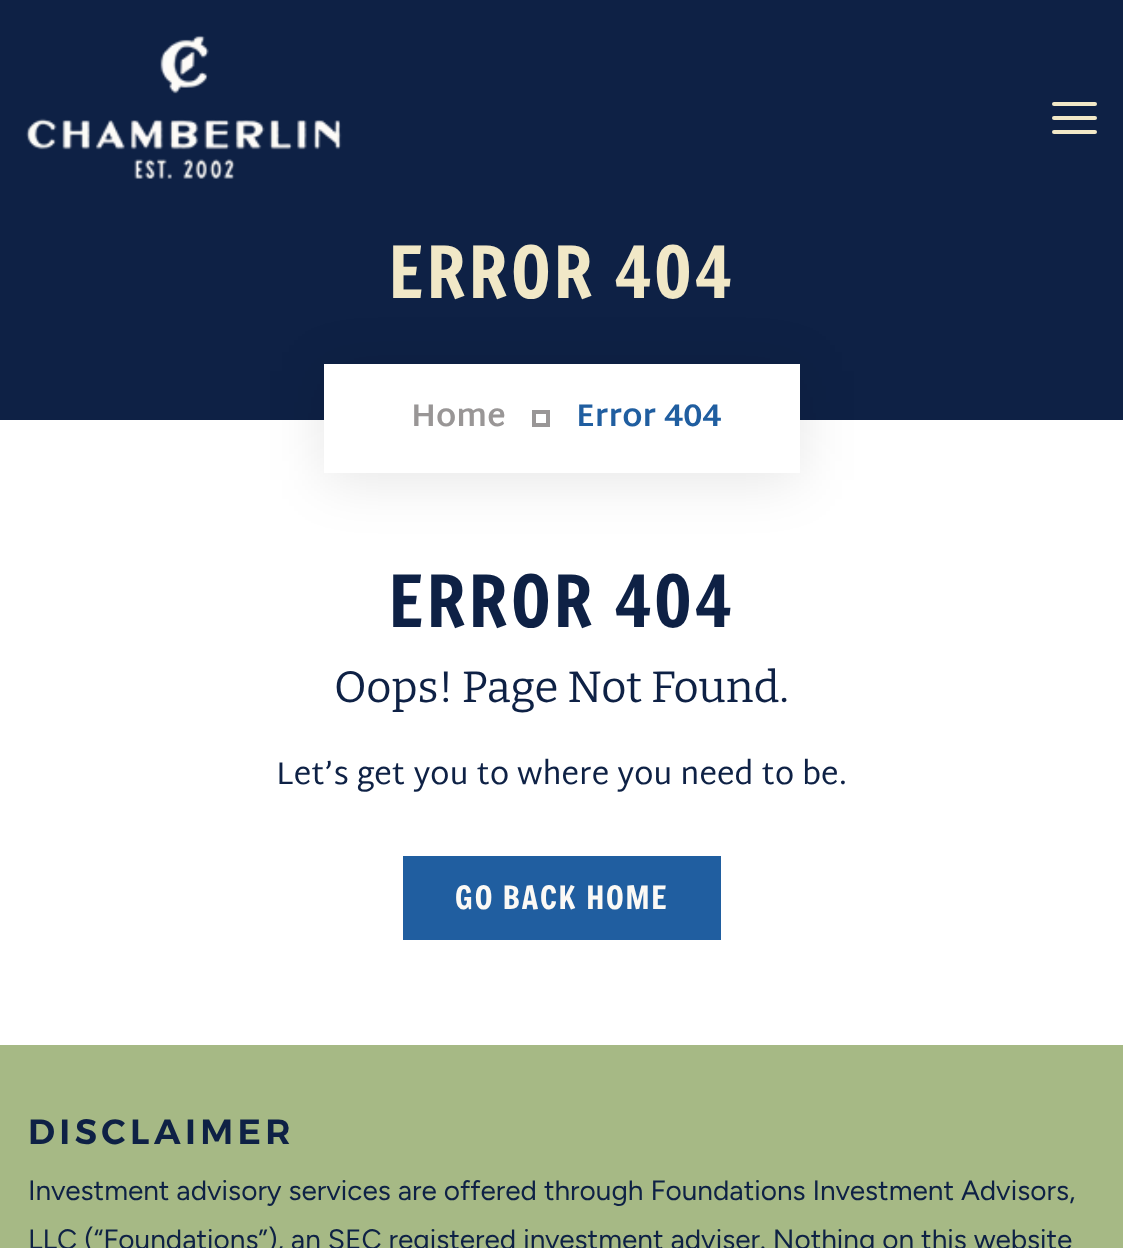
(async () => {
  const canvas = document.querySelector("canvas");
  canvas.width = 1123;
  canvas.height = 1248;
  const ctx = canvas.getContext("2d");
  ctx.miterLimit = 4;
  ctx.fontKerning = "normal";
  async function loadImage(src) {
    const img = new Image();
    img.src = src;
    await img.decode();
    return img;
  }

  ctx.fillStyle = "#ffffff";
  ctx.fillRect(0, 0, 1123, 1248);
  ctx.fillStyle = "#0e2145";
  ctx.fillRect(0, 0, 1123, 420);
  ctx.drawImage(await loadImage("img/1.png"), 26, 35, 316, 144);
  ctx.fillStyle = "#f1e8c7";
  ctx.beginPath();
  ctx.roundRect(1052, 102, 45, 4, 2);
  ctx.fill();
  ctx.beginPath();
  ctx.roundRect(1052, 116, 45, 4, 2);
  ctx.fill();
  ctx.beginPath();
  ctx.roundRect(1052, 130, 45, 4, 2);
  ctx.fill();
  ctx.fillStyle = "rgba(0, 0, 0, 0.1)";
  ctx.filter = "blur(28px)";
  ctx.beginPath();
  ctx.rect(324, 371, 476, 109);
  ctx.fill();
  ctx.filter = "none";
  ctx.fillStyle = "#ffffff";
  ctx.fillRect(324, 364, 476, 109);
  ctx.strokeStyle = "#999696";
  ctx.lineWidth = 4;
  ctx.strokeRect(534, 412, 14, 13);
  ctx.fillStyle = "#205ea0";
  ctx.fillRect(403, 856, 318, 84);
  ctx.fillStyle = "#a6b985";
  ctx.fillRect(0, 1045, 1123, 203);
  ctx.letterSpacing = "3.5px";
  ctx.font = "70px Freeman";
  ctx.fillStyle = "#f1e8c7";
  ctx.fillText("ERROR 404", 389, 298);
  ctx.letterSpacing = "0px";
  ctx.font = "bold 31.5px Martel Sans";
  ctx.fillStyle = "#999696";
  ctx.fillText("Home", 411, 426);
  ctx.fillStyle = "#205ea0";
  ctx.fillText("Error 404", 576, 426);
  ctx.letterSpacing = "3.5px";
  ctx.font = "70px Freeman";
  ctx.fillStyle = "#0e2145";
  ctx.fillText("ERROR 404", 389, 627);
  ctx.letterSpacing = "0px";
  ctx.font = "43.75px Bitter";
  ctx.fillText("Oops! Page Not Found.", 334, 702);
  ctx.font = "31.5px Martel Sans";
  ctx.fillText("Let’s get you to where you need to be.", 276, 784);
  ctx.letterSpacing = "1.75px";
  ctx.font = "31.5px Freeman";
  ctx.fillStyle = "#fbf9f5";
  ctx.fillText("GO BACK HOME", 455, 909);
  ctx.letterSpacing = "4.4px";
  ctx.font = "600 35px Alexandria";
  ctx.fillStyle = "#0e2145";
  ctx.fillText("DISCLAIMER", 28, 1144);
  ctx.letterSpacing = "0px";
  ctx.font = "28px Figtree";
  ctx.fillText("Investment advisory services are offered through Foundations Investment Advisors,", 28, 1200);
  ctx.fillText("LLC (“Foundations”), an SEC registered investment adviser. Nothing on this website", 28, 1249);
})();
